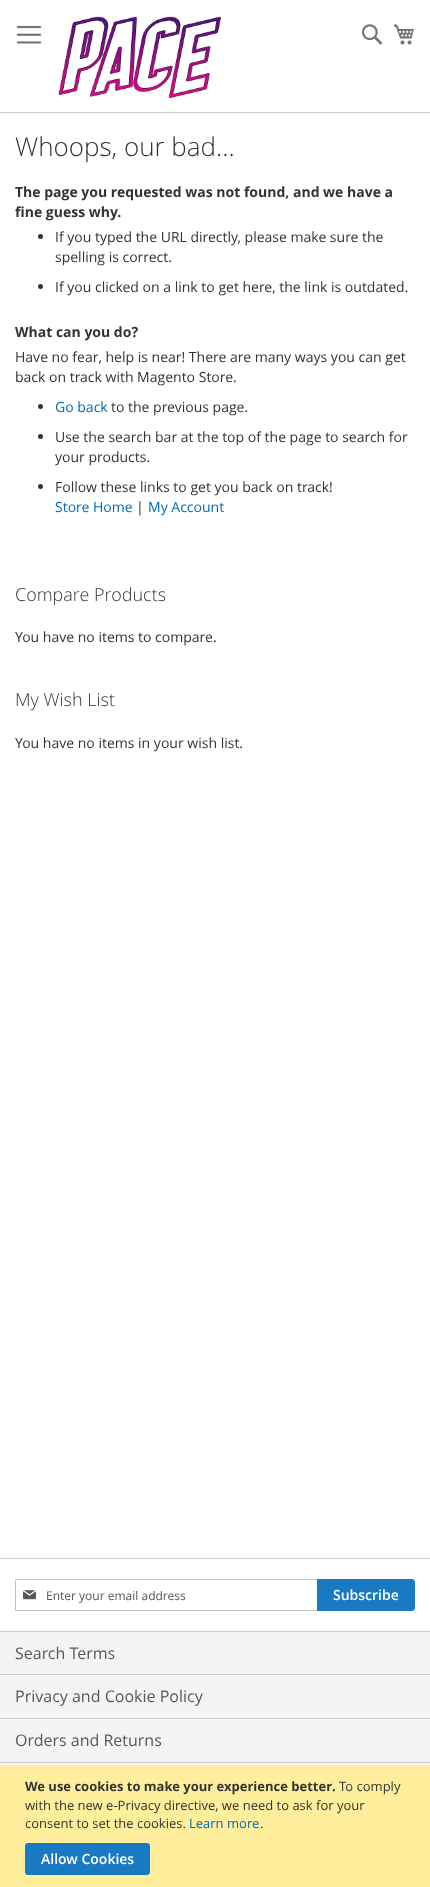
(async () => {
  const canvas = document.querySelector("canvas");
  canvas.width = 430;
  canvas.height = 1887;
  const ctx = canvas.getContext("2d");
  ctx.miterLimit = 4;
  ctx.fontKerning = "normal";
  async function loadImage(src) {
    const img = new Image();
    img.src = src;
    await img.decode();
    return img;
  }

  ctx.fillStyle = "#ffffff";
  ctx.fillRect(0, 0, 430, 1887);
  ctx.fillStyle = "#cccccc";
  ctx.fillRect(0, 112, 430, 1);
  ctx.drawImage(await loadImage("img/1.png"), 16, 25, 26, 19);
  ctx.drawImage(await loadImage("img/2.png"), 58, 16, 163, 83);
  ctx.drawImage(await loadImage("img/3.png"), 361, 24, 21, 21);
  ctx.drawImage(await loadImage("img/4.png"), 394, 24, 20, 21);
  ctx.fillStyle = "#333333";
  ctx.beginPath();
  ctx.arc(40.5, 236.5, 2.5, 0, Math.PI * 2);
  ctx.fill();
  ctx.beginPath();
  ctx.arc(40.5, 286.5, 2.5, 0, Math.PI * 2);
  ctx.fill();
  ctx.beginPath();
  ctx.arc(40.5, 406.5, 2.5, 0, Math.PI * 2);
  ctx.fill();
  ctx.beginPath();
  ctx.arc(40.5, 436.5, 2.5, 0, Math.PI * 2);
  ctx.fill();
  ctx.beginPath();
  ctx.arc(40.5, 486.5, 2.5, 0, Math.PI * 2);
  ctx.fill();
  ctx.fillStyle = "#cecece";
  ctx.fillRect(0, 1558, 430, 1);
  ctx.beginPath();
  ctx.roundRect(15.5, 1579.5, 302, 31, 0.5);
  ctx.strokeStyle = "#c2c2c2";
  ctx.stroke();
  ctx.drawImage(await loadImage("img/5.png"), 23, 1590, 13, 10);
  ctx.fillStyle = "#1979c3";
  ctx.beginPath();
  ctx.roundRect(317.5, 1579.5, 97, 31, [0, 2.5, 2.5, 0]);
  ctx.fill();
  ctx.strokeStyle = "#1979c3";
  ctx.stroke();
  for (const [x, y, w, h, color] of [
    [0, 1632, 430, 42, "#f4f4f4"],
    [0, 1631, 430, 1, "#cecece"],
    [0, 1675, 430, 43, "#f4f4f4"],
    [0, 1674, 430, 1, "#cecece"],
    [0, 1719, 430, 43, "#f4f4f4"],
    [0, 1718, 430, 1, "#cecece"],
    [0, 1763, 430, 2, "#f4f4f4"],
    [0, 1762, 430, 1, "#cecece"],
    [0, 1765, 430, 122, "#ffee9c"],
  ]) {
    ctx.fillStyle = color;
    ctx.fillRect(x, y, w, h);
  }
  ctx.fillStyle = "#1979c3";
  ctx.beginPath();
  ctx.roundRect(25.5, 1843.5, 124, 31, 2.5);
  ctx.fill();
  ctx.stroke();
  ctx.font = "300 26px Open Sans";
  ctx.fillStyle = "#333333";
  ctx.fillText("Whoops, our bad...", 15, 156);
  ctx.font = "bold 14px Open Sans";
  ctx.fillText("The page you requested was not found, and we have a", 15, 197);
  ctx.fillText("fine guess why.", 15, 217);
  ctx.font = "14px Open Sans";
  for (const [text, x, y] of [
    ["If you typed the URL directly, please make sure the", 55, 242],
    ["spelling is correct.", 55, 262],
    ["If you clicked on a link to get here, the link is outdated.", 55, 292],
  ]) {
    ctx.fillText(text, x, y);
  }
  ctx.font = "bold 14px Open Sans";
  ctx.fillText("What can you do?", 15, 337);
  ctx.font = "14px Open Sans";
  ctx.fillText("Have no fear, help is near! There are many ways you can get", 15, 362);
  ctx.fillText("back on track with Magento Store.", 15, 382);
  ctx.fillStyle = "#006bb4";
  ctx.fillText("Go back", 55, 412);
  ctx.fillStyle = "#333333";
  for (const [text, x, y] of [
    ["to the previous page.", 111, 412],
    ["Use the search bar at the top of the page to search for", 55, 442],
    ["your products.", 55, 462],
    ["Follow these links to get you back on track!", 55, 492],
  ]) {
    ctx.fillText(text, x, y);
  }
  ctx.fillStyle = "#006bb4";
  ctx.fillText("Store Home", 55, 512);
  ctx.fillStyle = "#333333";
  ctx.fillText("|", 136, 512);
  ctx.fillStyle = "#006bb4";
  ctx.fillText("My Account", 148, 512);
  ctx.font = "300 18px Open Sans";
  ctx.fillStyle = "#333333";
  ctx.fillText("Compare Products", 15, 601);
  ctx.font = "14px Open Sans";
  ctx.fillText("You have no items to compare.", 15, 642);
  ctx.font = "300 18px Open Sans";
  ctx.fillText("My Wish List", 15, 706);
  ctx.font = "14px Open Sans";
  ctx.fillText("You have no items in your wish list.", 15, 748);
  ctx.font = "12px Open Sans";
  ctx.fillStyle = "#575757";
  ctx.fillText("Enter your email address", 46, 1600);
  ctx.font = "600 14px Open Sans";
  ctx.fillStyle = "#ffffff";
  ctx.fillText("Subscribe", 333, 1600);
  ctx.font = "16px Open Sans";
  ctx.fillStyle = "#575757";
  for (const [text, x, y] of [
    ["Search Terms", 15, 1659],
    ["Privacy and Cookie Policy", 15, 1702],
    ["Orders and Returns", 15, 1746],
  ]) {
    ctx.fillText(text, x, y);
  }
  ctx.font = "bold 13px Open Sans";
  ctx.fillStyle = "#333333";
  ctx.fillText("We use cookies to make your experience better.", 25, 1791);
  ctx.font = "13px Open Sans";
  for (const [text, x, y] of [
    ["To comply", 339, 1791],
    ["with the new e-Privacy directive, we need to ask for your", 25, 1810],
    ["consent to set the cookies.", 25, 1828],
  ]) {
    ctx.fillText(text, x, y);
  }
  ctx.fillStyle = "#006bb4";
  ctx.fillText("Learn more", 189, 1828);
  ctx.fillStyle = "#333333";
  ctx.fillText(".", 260, 1828);
  ctx.font = "600 14px Open Sans";
  ctx.fillStyle = "#ffffff";
  ctx.fillText("Allow Cookies", 41, 1864);
})();
